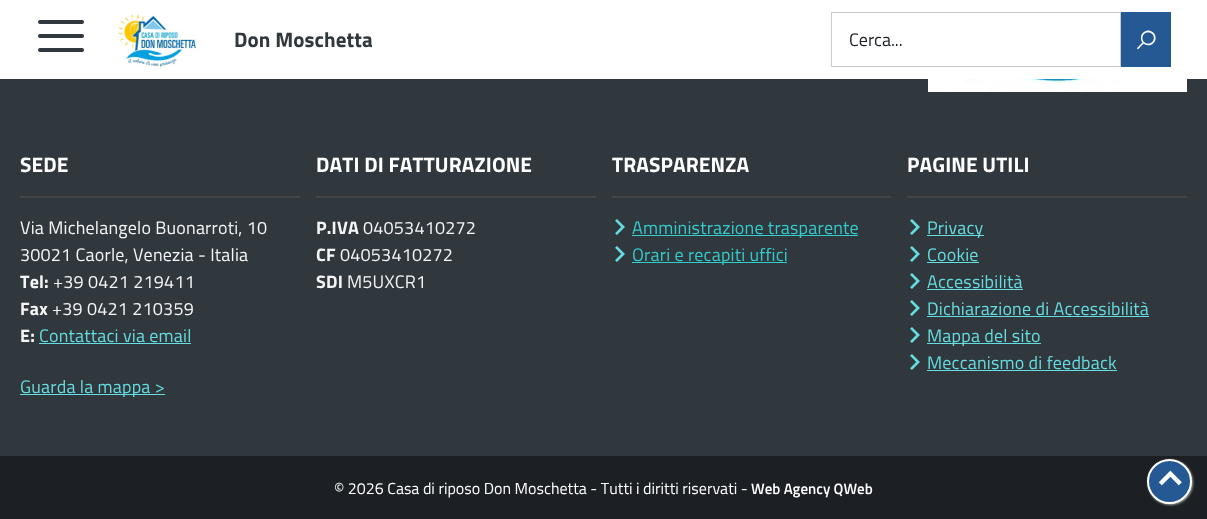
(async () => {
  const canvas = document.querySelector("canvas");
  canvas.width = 1207;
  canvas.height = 519;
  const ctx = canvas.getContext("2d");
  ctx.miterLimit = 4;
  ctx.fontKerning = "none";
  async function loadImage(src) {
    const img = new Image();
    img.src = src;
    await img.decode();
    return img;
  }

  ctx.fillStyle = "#30373d";
  ctx.fillRect(0, 0, 1207, 519);
  ctx.fillStyle = "#ffffff";
  ctx.fillRect(0, 0, 1207, 79);
  ctx.fillStyle = "#30373d";
  ctx.beginPath();
  ctx.roundRect(38, 34, 46, 4, 2);
  ctx.fill();
  ctx.beginPath();
  ctx.roundRect(38, 20, 46, 4, 2);
  ctx.fill();
  ctx.beginPath();
  ctx.roundRect(38, 48, 46, 4, 2);
  ctx.fill();
  ctx.drawImage(await loadImage("img/1.png"), 118, 14, 79, 54);
  ctx.strokeStyle = "#cccccc";
  ctx.strokeRect(831.5, 12.5, 289, 54);
  ctx.fillStyle = "#255994";
  ctx.fillRect(1121, 12, 50, 55);
  ctx.drawImage(await loadImage("img/2.png"), 928, 79, 259, 13);
  for (const [x, y, w, h, color] of [
    [20, 196, 280, 2, "#444444"],
    [39, 343, 152, 1, "#65dcdf"],
    [20, 394, 145, 1, "#65dcdf"],
    [316, 196, 280, 2, "#444444"],
    [612, 196, 279, 2, "#444444"],
    [632, 235, 226, 1, "#33cccc"],
    [632, 262, 155, 1, "#33cccc"],
    [907, 196, 280, 2, "#444444"],
    [927, 235, 57, 1, "#65dcdf"],
    [927, 262, 52, 1, "#65dcdf"],
    [927, 289, 96, 1, "#65dcdf"],
    [927, 316, 222, 1, "#65dcdf"],
    [927, 343, 114, 1, "#65dcdf"],
    [927, 370, 190, 1, "#65dcdf"],
    [0, 456, 1207, 63, "#1c2024"],
  ]) {
    ctx.fillStyle = color;
    ctx.fillRect(x, y, w, h);
  }
  ctx.fillStyle = "#aaaaaa";
  ctx.filter = "blur(1px)";
  ctx.beginPath();
  ctx.roundRect(1148, 460, 45, 45, 22.5);
  ctx.fill();
  ctx.filter = "none";
  ctx.fillStyle = "#255994";
  ctx.beginPath();
  ctx.arc(1169.5, 481.5, 21.5, 0, Math.PI * 2);
  ctx.fill();
  ctx.strokeStyle = "#ffffff";
  ctx.lineWidth = 2;
  ctx.stroke();
  ctx.letterSpacing = "0.1px";
  ctx.font = "bold 21px Titillium Web";
  ctx.fillStyle = "#30373d";
  ctx.fillText("Don Moschetta", 234, 47);
  ctx.letterSpacing = "0px";
  ctx.font = "bold 18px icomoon";
  ctx.fillStyle = "#ffffff";
  ctx.fillText("🔍", 1137, 48);
  ctx.font = "18px Titillium Web";
  ctx.fillStyle = "#1c2024";
  ctx.fillText("Cerca...", 849, 46);
  ctx.letterSpacing = "0.1px";
  ctx.font = "bold 21px Titillium Web";
  ctx.fillStyle = "#ffffff";
  ctx.fillText("SEDE", 20, 172);
  ctx.letterSpacing = "0.2px";
  ctx.font = "18px Titillium Web";
  ctx.fillStyle = "#f5f5f5";
  ctx.fillText("Via Michelangelo Buonarroti, 10", 20, 234);
  ctx.fillText("30021 Caorle, Venezia - Italia", 20, 261);
  ctx.font = "bold 18px Titillium Web";
  ctx.fillText("Tel:", 20, 288);
  ctx.font = "18px Titillium Web";
  ctx.fillText("+39 0421 219411", 53, 288);
  ctx.font = "bold 18px Titillium Web";
  ctx.fillText("Fax", 20, 315);
  ctx.font = "18px Titillium Web";
  ctx.fillText("+39 0421 210359", 52, 315);
  ctx.font = "bold 18px Titillium Web";
  ctx.fillText("E:", 20, 342);
  ctx.font = "18px Titillium Web";
  ctx.fillStyle = "#65dcdf";
  ctx.fillText("Contattaci via email", 39, 342);
  ctx.fillText("Guarda la mappa >", 20, 393);
  ctx.letterSpacing = "0.1px";
  ctx.font = "bold 21px Titillium Web";
  ctx.fillStyle = "#ffffff";
  ctx.fillText("DATI DI FATTURAZIONE", 316, 172);
  ctx.letterSpacing = "0.2px";
  ctx.font = "bold 18px Titillium Web";
  ctx.fillStyle = "#f5f5f5";
  ctx.fillText("P.IVA", 316, 234);
  ctx.font = "18px Titillium Web";
  ctx.fillText("04053410272", 363, 234);
  ctx.font = "bold 18px Titillium Web";
  ctx.fillText("CF", 316, 261);
  ctx.font = "18px Titillium Web";
  ctx.fillText("04053410272", 340, 261);
  ctx.font = "bold 18px Titillium Web";
  ctx.fillText("SDI", 316, 288);
  ctx.font = "18px Titillium Web";
  ctx.fillText("M5UXCR1", 347, 288);
  ctx.letterSpacing = "0.1px";
  ctx.font = "bold 21px Titillium Web";
  ctx.fillStyle = "#ffffff";
  ctx.fillText("TRASPARENZA", 612, 172);
  ctx.letterSpacing = "0px";
  ctx.font = "16px icomoon";
  ctx.fillStyle = "#65dcdf";
  ctx.fillText("⏵", 612, 234);
  ctx.letterSpacing = "0.2px";
  ctx.font = "18px Titillium Web";
  ctx.fillStyle = "#33cccc";
  ctx.fillText("Amministrazione trasparente", 632, 234);
  ctx.letterSpacing = "0px";
  ctx.font = "16px icomoon";
  ctx.fillStyle = "#65dcdf";
  ctx.fillText("⏵", 612, 261);
  ctx.letterSpacing = "0.2px";
  ctx.font = "18px Titillium Web";
  ctx.fillStyle = "#33cccc";
  ctx.fillText("Orari e recapiti uffici", 632, 261);
  ctx.letterSpacing = "0.1px";
  ctx.font = "bold 21px Titillium Web";
  ctx.fillStyle = "#ffffff";
  ctx.fillText("PAGINE UTILI", 907, 172);
  ctx.letterSpacing = "0px";
  ctx.font = "16px icomoon";
  ctx.fillStyle = "#65dcdf";
  ctx.fillText("⏵", 907, 234);
  ctx.letterSpacing = "0.2px";
  ctx.font = "18px Titillium Web";
  ctx.fillText("Privacy", 927, 234);
  ctx.letterSpacing = "0px";
  ctx.font = "16px icomoon";
  ctx.fillText("⏵", 907, 261);
  ctx.letterSpacing = "0.2px";
  ctx.font = "18px Titillium Web";
  ctx.fillText("Cookie", 927, 261);
  ctx.letterSpacing = "0px";
  ctx.font = "16px icomoon";
  ctx.fillText("⏵", 907, 288);
  ctx.letterSpacing = "0.2px";
  ctx.font = "18px Titillium Web";
  ctx.fillText("Accessibilità", 927, 288);
  ctx.letterSpacing = "0px";
  ctx.font = "16px icomoon";
  ctx.fillText("⏵", 907, 315);
  ctx.letterSpacing = "0.2px";
  ctx.font = "18px Titillium Web";
  ctx.fillText("Dichiarazione di Accessibilità", 927, 315);
  ctx.letterSpacing = "0px";
  ctx.font = "16px icomoon";
  ctx.fillText("⏵", 907, 342);
  ctx.letterSpacing = "0.2px";
  ctx.font = "18px Titillium Web";
  ctx.fillText("Mappa del sito", 927, 342);
  ctx.letterSpacing = "0px";
  ctx.font = "16px icomoon";
  ctx.fillText("⏵", 907, 369);
  ctx.letterSpacing = "0.2px";
  ctx.font = "18px Titillium Web";
  ctx.fillText("Meccanismo di feedback", 927, 369);
  ctx.letterSpacing = "0px";
  ctx.font = "bold 22px icomoon";
  ctx.fillStyle = "#ffffff";
  ctx.fillText("⏷", 1159, 488);
  ctx.font = "16px Titillium Web";
  ctx.fillText("© 2026 Casa di riposo Don Moschetta - Tutti i diritti riservati -", 334, 494);
  ctx.font = "600 15px Titillium Web";
  ctx.fillText("Web Agency QWeb", 751, 494);
})();
